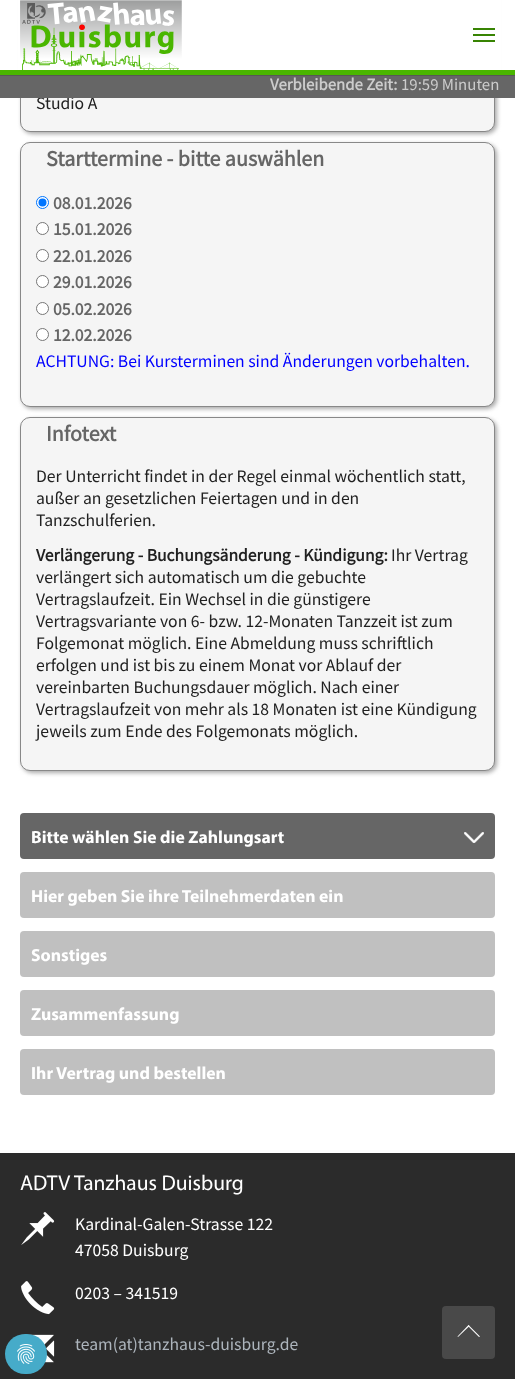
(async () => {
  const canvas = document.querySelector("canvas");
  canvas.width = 515;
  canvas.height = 1379;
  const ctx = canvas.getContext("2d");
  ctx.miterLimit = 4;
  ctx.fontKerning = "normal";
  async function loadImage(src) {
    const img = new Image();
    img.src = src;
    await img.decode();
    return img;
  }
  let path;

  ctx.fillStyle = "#ffffff";
  ctx.fillRect(0, 0, 515, 1379);
  ctx.fillStyle = "#aaaaaa";
  ctx.filter = "blur(2px)";
  ctx.beginPath();
  ctx.roundRect(22, -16, 475, 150, 10);
  ctx.fill();
  ctx.filter = "none";
  ctx.fillStyle = "#f5f5f5";
  ctx.beginPath();
  ctx.roundRect(20.5, -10.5, 474, 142, 9.5);
  ctx.fill();
  ctx.strokeStyle = "#888888";
  ctx.stroke();
  for (const [x, y, w, h, color] of [
    [0, 75, 515, 1, "#575757"],
    [18, 0, 483, 70, "#ffffff"],
    [0, 70, 515, 5, "#4ab600"],
  ]) {
    ctx.fillStyle = color;
    ctx.fillRect(x, y, w, h);
  }
  ctx.drawImage(await loadImage("img/1.png"), 20, 0, 162, 70);
  for (const [x, y, w, h, color] of [
    [473, 34, 22, 2, "#388403"],
    [473, 28, 22, 2, "#388403"],
    [473, 40, 22, 2, "#388403"],
  ]) {
    ctx.fillStyle = color;
    ctx.fillRect(x, y, w, h);
  }
  ctx.fillStyle = "#aaaaaa";
  ctx.filter = "blur(2px)";
  ctx.beginPath();
  ctx.roundRect(22, 144, 475, 265, 10);
  ctx.fill();
  ctx.filter = "none";
  ctx.fillStyle = "#f5f5f5";
  ctx.beginPath();
  ctx.roundRect(20.5, 142.5, 474, 264, 9.5);
  ctx.fill();
  ctx.stroke();
  ctx.fillStyle = "#ffffff";
  ctx.beginPath();
  ctx.arc(42.5, 202.5, 6, 0, Math.PI * 2);
  ctx.fill();
  ctx.strokeStyle = "#0075ff";
  ctx.stroke();
  ctx.fillStyle = "#0075ff";
  ctx.beginPath();
  ctx.arc(42.5, 202.5, 4, 0, Math.PI * 2);
  ctx.fill();
  ctx.fillStyle = "#ffffff";
  ctx.beginPath();
  ctx.arc(42.5, 228.5, 6, 0, Math.PI * 2);
  ctx.fill();
  ctx.strokeStyle = "#767676";
  ctx.stroke();
  ctx.beginPath();
  ctx.arc(42.5, 255.5, 6, 0, Math.PI * 2);
  ctx.fill();
  ctx.stroke();
  ctx.beginPath();
  ctx.arc(42.5, 281.5, 6, 0, Math.PI * 2);
  ctx.fill();
  ctx.stroke();
  ctx.beginPath();
  ctx.arc(42.5, 308.5, 6, 0, Math.PI * 2);
  ctx.fill();
  ctx.stroke();
  ctx.beginPath();
  ctx.arc(42.5, 334.5, 6, 0, Math.PI * 2);
  ctx.fill();
  ctx.stroke();
  ctx.fillStyle = "#aaaaaa";
  ctx.filter = "blur(2px)";
  ctx.beginPath();
  ctx.roundRect(22, 419, 475, 354, 10);
  ctx.fill();
  ctx.filter = "none";
  ctx.fillStyle = "#f5f5f5";
  ctx.beginPath();
  ctx.roundRect(20.5, 417.5, 474, 353, 9.5);
  ctx.fill();
  ctx.strokeStyle = "#888888";
  ctx.stroke();
  ctx.fillStyle = "#666666";
  ctx.beginPath();
  ctx.roundRect(20, 813, 475, 46, 4);
  ctx.fill();
  ctx.drawImage(await loadImage("img/2.png"), 464, 832, 20, 11);
  ctx.fillStyle = "#c0c0c0";
  ctx.beginPath();
  ctx.roundRect(20, 872, 475, 46, 4);
  ctx.fill();
  ctx.beginPath();
  ctx.roundRect(20, 931, 475, 46, 4);
  ctx.fill();
  ctx.beginPath();
  ctx.roundRect(20, 990, 475, 46, 4);
  ctx.fill();
  ctx.beginPath();
  ctx.roundRect(20, 1049, 475, 46, 4);
  ctx.fill();
  ctx.fillStyle = "#2b2b2b";
  ctx.fillRect(0, 1153, 515, 226);
  ctx.drawImage(await loadImage("img/3.png"), 21, 1212, 34, 33);
  ctx.drawImage(await loadImage("img/4.png"), 21, 1281, 34, 34);
  ctx.drawImage(await loadImage("img/5.png"), 21, 1334, 34, 29);
  ctx.fillStyle = "#494949";
  ctx.beginPath();
  ctx.roundRect(442, 1306, 53, 53, 4);
  ctx.fill();
  ctx.fillStyle = "#ffffff";
  path = new Path2D("M468.5 1325L480 1336.5L479 1337L468 1326Z");
  ctx.fill(path);
  path = new Path2D("M468.5 1325L469.5 1326L458 1337L457.5 1336.5Z");
  ctx.fill(path);
  ctx.fillStyle = "#46abc9";
  ctx.beginPath();
  ctx.roundRect(5, 1334, 42, 40, 20);
  ctx.fill();
  ctx.drawImage(await loadImage("img/6.png"), 17, 1344, 18, 20);
  ctx.font = "17.6px Source Sans Pro";
  ctx.fillStyle = "#212121";
  ctx.fillText("Studio A", 36, 109);
  ctx.fillStyle = "#666666";
  ctx.fillRect(0, 76, 515, 22);
  ctx.font = "16.75px Source Sans Pro";
  ctx.fillStyle = "#cccccc";
  ctx.fillText("19:59 Minuten", 401, 90);
  ctx.font = "bold 16.75px Source Sans Pro";
  ctx.fillText("Verbleibende Zeit:", 270, 90);
  ctx.font = "bold 22px Source Sans Pro";
  ctx.fillStyle = "#666666";
  ctx.fillText("Starttermine - bitte auswählen", 46, 166);
  ctx.font = "bold 17.6px Source Sans Pro";
  for (const [text, x, y] of [
    ["08.01.2026", 53, 209],
    ["15.01.2026", 53, 235],
    ["22.01.2026", 53, 262],
    ["29.01.2026", 53, 288],
    ["05.02.2026", 53, 315],
    ["12.02.2026", 53, 341],
  ]) {
    ctx.fillText(text, x, y);
  }
  ctx.font = "17.6px Source Sans Pro";
  ctx.fillStyle = "#0000ff";
  ctx.fillText("ACHTUNG: Bei Kursterminen sind Änderungen vorbehalten.", 36, 367);
  ctx.font = "bold 22px Source Sans Pro";
  ctx.fillStyle = "#666666";
  ctx.fillText("Infotext", 46, 441);
  ctx.font = "17.6px Source Sans Pro";
  ctx.fillStyle = "#212121";
  for (const [text, x, y] of [
    ["Der Unterricht findet in der Regel einmal wöchentlich statt,", 36, 482],
    ["außer an gesetzlichen Feiertagen und in den", 36, 504],
    ["Tanzschulferien.", 36, 526],
  ]) {
    ctx.fillText(text, x, y);
  }
  ctx.font = "bold 17.6px Source Sans Pro";
  ctx.fillText("Verlängerung - Buchungsänderung - Kündigung:", 36, 561);
  ctx.font = "17.6px Source Sans Pro";
  for (const [text, x, y] of [
    ["Ihr Vertrag", 391, 561],
    ["verlängert sich automatisch um die gebuchte", 36, 583],
    ["Vertragslaufzeit. Ein Wechsel in die günstigere", 36, 605],
    ["Vertragsvariante von 6- bzw. 12-Monaten Tanzzeit ist zum", 36, 627],
    ["Folgemonat möglich. Eine Abmeldung muss schriftlich", 36, 649],
    ["erfolgen und ist bis zu einem Monat vor Ablauf der", 36, 671],
    ["vereinbarten Buchungsdauer möglich. Nach einer", 36, 693],
    ["Vertragslaufzeit von mehr als 18 Monaten ist eine Kündigung", 36, 715],
    ["jeweils zum Ende des Folgemonats möglich.", 36, 737],
  ]) {
    ctx.fillText(text, x, y);
  }
  ctx.font = "bold 17.6px Myriad";
  ctx.fillStyle = "#ffffff";
  for (const [text, x, y] of [
    ["Bitte wählen Sie die Zahlungsart", 31, 843],
    ["Hier geben Sie ihre Teilnehmerdaten ein", 31, 902],
    ["Sonstiges", 31, 961],
    ["Zusammenfassung", 31, 1020],
    ["Ihr Vertrag und bestellen", 31, 1079],
  ]) {
    ctx.fillText(text, x, y);
  }
  ctx.font = "21.4px Myriad";
  ctx.fillText("ADTV Tanzhaus Duisburg", 20, 1190);
  ctx.font = "17.6px Source Sans Pro";
  for (const [text, x, y] of [
    ["Kardinal-Galen-Strasse 122", 75, 1230],
    ["47058 Duisburg", 75, 1256],
    ["0203 – 341519", 75, 1299],
  ]) {
    ctx.fillText(text, x, y);
  }
  ctx.fillStyle = "#adb5bd";
  ctx.fillText("team(at)tanzhaus-duisburg.de", 75, 1350);
})();
